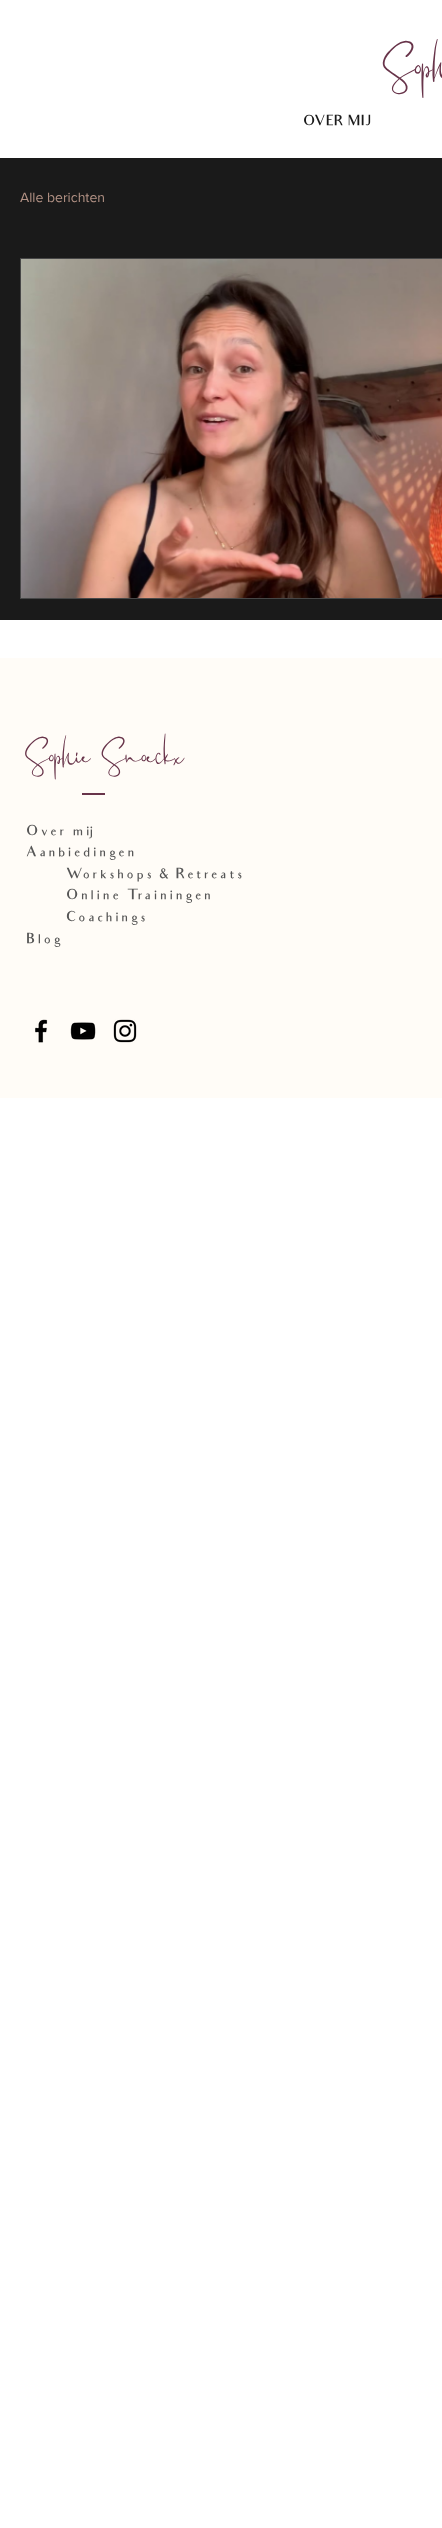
(async () => {
  const canvas = document.querySelector("canvas");
  canvas.width = 442;
  canvas.height = 2528;
  const ctx = canvas.getContext("2d");
  ctx.miterLimit = 4;
  ctx.fontKerning = "normal";
  async function loadImage(src) {
    const img = new Image();
    img.src = src;
    await img.decode();
    return img;
  }

  ctx.fillStyle = "#ffffff";
  ctx.fillRect(0, 0, 442, 2528);
  ctx.fillStyle = "#1a1a1a";
  ctx.fillRect(0, 158, 442, 462);
  ctx.strokeStyle = "#474747";
  ctx.strokeRect(20.5, 258.5, 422, 340);
  ctx.drawImage(await loadImage("img/1.png"), 21, 259, 421, 339);
  ctx.fillStyle = "#fffcf7";
  ctx.fillRect(0, 658, 442, 440);
  ctx.fillStyle = "#68344a";
  ctx.fillRect(82, 793, 23, 2);
  ctx.drawImage(await loadImage("img/2.png"), 35, 1019, 13, 24);
  ctx.drawImage(await loadImage("img/3.png"), 70, 1022, 26, 18);
  ctx.drawImage(await loadImage("img/4.png"), 113, 1019, 24, 24);
  ctx.font = "80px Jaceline";
  ctx.fillText("Soph", 384, 88);
  ctx.font = "500 14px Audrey";
  ctx.fillStyle = "#1a1a1a";
  ctx.fillText("OVER MIJ", 303, 125);
  ctx.font = "14px 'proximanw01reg'";
  ctx.fillStyle = "#b39285";
  ctx.fillText("Alle berichten", 20, 202);
  ctx.font = "60px Jaceline";
  ctx.fillStyle = "#68344a";
  ctx.fillText("Sophie Snoeckx", 26, 772);
  ctx.letterSpacing = "2.1px";
  ctx.font = "500 14px Audrey";
  ctx.fillStyle = "#565656";
  for (const [text, x, y] of [
    ["Over mij", 26, 835],
    ["Aanbiedingen", 26, 856],
    ["Workshops & Retreats", 66, 878],
    ["Online Trainingen", 66, 899],
    ["Coachings", 66, 921],
    ["Blog", 26, 943],
  ]) {
    ctx.fillText(text, x, y);
  }
})();
